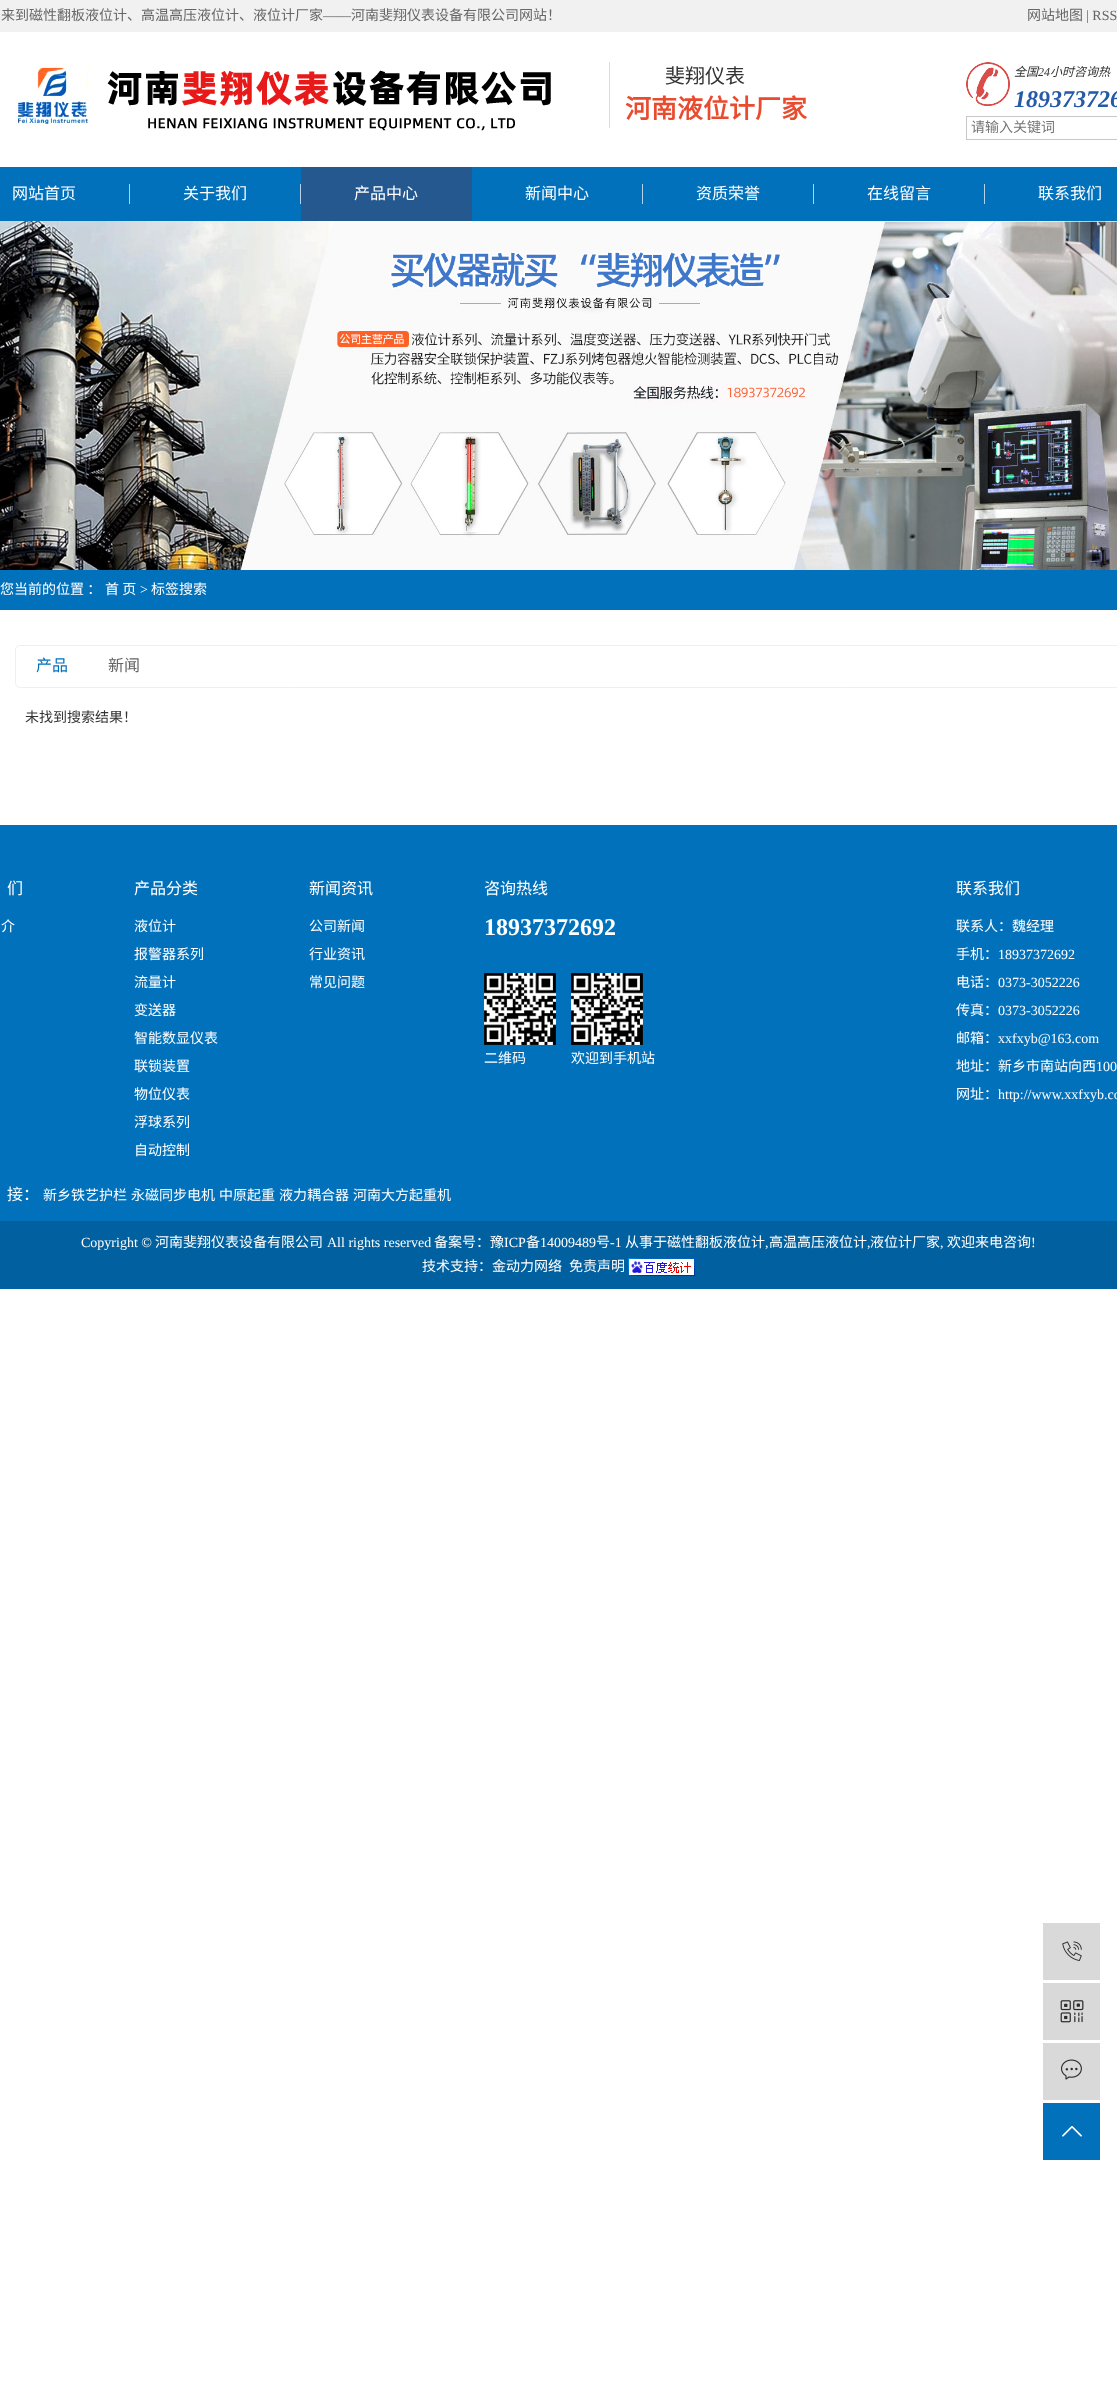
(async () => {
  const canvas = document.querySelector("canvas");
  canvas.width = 1117;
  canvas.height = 2403;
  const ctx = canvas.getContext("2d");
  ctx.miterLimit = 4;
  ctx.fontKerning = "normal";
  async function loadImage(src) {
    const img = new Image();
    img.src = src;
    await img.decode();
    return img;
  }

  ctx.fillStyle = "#ffffff";
  ctx.fillRect(0, 0, 1117, 2403);
  ctx.fillStyle = "#f1f1f1";
  ctx.fillRect(0, 0, 1117, 32);
  ctx.drawImage(await loadImage("img/1.png"), 18, 62, 533, 69);
  ctx.fillStyle = "#dcdcdc";
  ctx.fillRect(609, 62, 1, 66);
  ctx.drawImage(await loadImage("img/2.png"), 966, 62, 44, 44);
  ctx.strokeStyle = "#c8c8c8";
  ctx.strokeRect(966.5, 116.5, 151, 23);
  for (const [x, y, w, h, color] of [
    [0, 167, 1117, 54, "#0171bc"],
    [129, 184, 1, 20, "#b2d3e9"],
    [300, 184, 1, 20, "#b2d3e9"],
    [301, 167, 171, 54, "#24588e"],
    [642, 184, 1, 20, "#b2d3e9"],
    [813, 184, 1, 20, "#b2d3e9"],
    [984, 184, 1, 20, "#b2d3e9"],
  ]) {
    ctx.fillStyle = color;
    ctx.fillRect(x, y, w, h);
  }
  ctx.drawImage(await loadImage("img/3.png"), 0, 221, 1117, 349);
  ctx.fillStyle = "#0171bc";
  ctx.fillRect(0, 570, 1117, 40);
  ctx.beginPath();
  ctx.roundRect(15.5, 645.5, 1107, 42, 4.5);
  ctx.strokeStyle = "#efefef";
  ctx.stroke();
  ctx.fillRect(0, 825, 1117, 396);
  ctx.drawImage(await loadImage("img/4.png"), 484, 973, 72, 72);
  ctx.drawImage(await loadImage("img/5.png"), 571, 973, 72, 72);
  ctx.fillStyle = "#01609f";
  ctx.fillRect(0, 1221, 1117, 68);
  ctx.drawImage(await loadImage("img/6.png"), 628, 1258, 67, 18);
  ctx.fillStyle = "#d9d9d9";
  ctx.fillRect(1043, 1923, 57, 57);
  ctx.drawImage(await loadImage("img/7.png"), 1062, 1941, 20, 20);
  ctx.fillRect(1043, 1983, 57, 57);
  ctx.drawImage(await loadImage("img/8.png"), 1060, 2000, 24, 23);
  ctx.fillRect(1043, 2043, 57, 57);
  ctx.drawImage(await loadImage("img/9.png"), 1060, 2059, 22, 21);
  ctx.fillStyle = "#0171bc";
  ctx.fillRect(1043, 2103, 57, 57);
  ctx.drawImage(await loadImage("img/10.png"), 1062, 2125, 20, 12);
  ctx.font = "14px Noto Sans CJK SC";
  ctx.fillStyle = "#666666";
  ctx.fillText("来到磁性翻板液位计、高温高压液位计、液位计厂家", 1, 20);
  ctx.font = "14px Liberation Serif";
  ctx.fillText("——", 323, 20);
  ctx.font = "14px Noto Sans CJK SC";
  ctx.fillText("河南斐翔仪表设备有限公司网站！", 351, 20);
  ctx.fillText("网站地图", 1027, 20);
  ctx.font = "14px Liberation Serif";
  ctx.fillText("| RSS", 1086, 20);
  ctx.font = "20px Noto Sans CJK SC";
  ctx.fillStyle = "#333333";
  ctx.fillText("斐翔仪表", 665, 83);
  ctx.font = "bold 26px Noto Sans CJK SC";
  ctx.fillStyle = "#e94b2e";
  ctx.fillText("河南液位计厂家", 625, 118);
  ctx.font = "italic 12px Noto Sans CJK SC";
  ctx.fillStyle = "#333333";
  ctx.fillText("全国", 1014, 76);
  ctx.font = "italic 12px Liberation Serif";
  ctx.fillText("24", 1038, 76);
  ctx.font = "italic 12px Noto Sans CJK SC";
  ctx.fillText("小时咨询热", 1050, 76);
  ctx.font = "italic bold 24px Liberation Serif";
  ctx.fillStyle = "#245aa7";
  ctx.fillText("189373726", 1014, 107);
  ctx.font = "14px Noto Sans CJK SC";
  ctx.fillStyle = "#757575";
  ctx.fillText("请输入关键词", 971, 132);
  ctx.font = "16px Noto Sans CJK SC";
  ctx.fillStyle = "#ffffff";
  for (const [text, x, y] of [
    ["网站首页", 12, 199],
    ["关于我们", 183, 199],
    ["产品中心", 354, 199],
    ["新闻中心", 525, 199],
    ["资质荣誉", 696, 199],
    ["在线留言", 867, 199],
    ["联系我们", 1038, 199],
  ]) {
    ctx.fillText(text, x, y);
  }
  ctx.font = "14px Noto Sans CJK SC";
  ctx.fillText("您当前的位置 ：", 0, 594);
  ctx.fillText("首 页", 105, 594);
  ctx.font = "14px Liberation Serif";
  ctx.fillText(">", 140, 594);
  ctx.font = "14px Noto Sans CJK SC";
  ctx.fillText("标签搜索", 151, 594);
  ctx.font = "16px Noto Sans CJK SC";
  ctx.fillStyle = "#0171bc";
  ctx.fillText("产品", 36, 671);
  ctx.fillStyle = "#666666";
  ctx.fillText("新闻", 108, 671);
  ctx.font = "14px Noto Sans CJK SC";
  ctx.fillStyle = "#333333";
  ctx.fillText("未找到搜索结果！", 25, 722);
  ctx.font = "16px Noto Sans CJK SC";
  ctx.fillStyle = "#ffffff";
  ctx.fillText("们", 7, 894);
  ctx.font = "14px Noto Sans CJK SC";
  ctx.fillText("介", 1, 931);
  ctx.font = "16px Noto Sans CJK SC";
  ctx.fillText("产品分类", 134, 894);
  ctx.font = "14px Noto Sans CJK SC";
  for (const [text, x, y] of [
    ["液位计", 134, 931],
    ["报警器系列", 134, 959],
    ["流量计", 134, 987],
    ["变送器", 134, 1015],
    ["智能数显仪表", 134, 1043],
    ["联锁装置", 134, 1071],
    ["物位仪表", 134, 1099],
    ["浮球系列", 134, 1127],
    ["自动控制", 134, 1155],
  ]) {
    ctx.fillText(text, x, y);
  }
  ctx.font = "16px Noto Sans CJK SC";
  ctx.fillText("新闻资讯", 309, 894);
  ctx.font = "14px Noto Sans CJK SC";
  for (const [text, x, y] of [
    ["公司新闻", 309, 931],
    ["行业资讯", 309, 959],
    ["常见问题", 309, 987],
  ]) {
    ctx.fillText(text, x, y);
  }
  ctx.font = "16px Noto Sans CJK SC";
  ctx.fillText("咨询热线", 484, 894);
  ctx.font = "bold 24px Liberation Serif";
  ctx.fillText("18937372692", 484, 935);
  ctx.font = "14px Noto Sans CJK SC";
  ctx.fillText("二维码", 484, 1063);
  ctx.fillText("欢迎到手机站", 571, 1063);
  ctx.font = "16px Noto Sans CJK SC";
  ctx.fillText("联系我们", 956, 894);
  ctx.font = "14px Noto Sans CJK SC";
  ctx.fillText("联系人：魏经理", 956, 931);
  ctx.fillText("手机：", 956, 959);
  ctx.font = "14px Liberation Serif";
  ctx.fillText("18937372692", 998, 959);
  ctx.font = "14px Noto Sans CJK SC";
  ctx.fillText("电话：", 956, 987);
  ctx.font = "14px Liberation Serif";
  ctx.fillText("0373-3052226", 998, 987);
  ctx.font = "14px Noto Sans CJK SC";
  ctx.fillText("传真：", 956, 1015);
  ctx.font = "14px Liberation Serif";
  ctx.fillText("0373-3052226", 998, 1015);
  ctx.font = "14px Noto Sans CJK SC";
  ctx.fillText("邮箱：", 956, 1043);
  ctx.font = "14px Liberation Serif";
  ctx.fillText("xxfxyb@163.com", 998, 1043);
  ctx.font = "14px Noto Sans CJK SC";
  ctx.fillText("地址：新乡市南站向西", 956, 1071);
  ctx.font = "14px Liberation Serif";
  ctx.fillText("100", 1096, 1071);
  ctx.font = "14px Noto Sans CJK SC";
  ctx.fillText("网址：", 956, 1099);
  ctx.font = "14px Liberation Serif";
  ctx.fillText("http://www.xxfxyb.co", 998, 1099);
  ctx.font = "16px Noto Sans CJK SC";
  ctx.fillText("接：", 7, 1200);
  ctx.font = "14px Noto Sans CJK SC";
  for (const [text, x, y] of [
    ["新乡铁艺护栏", 43, 1200],
    ["永磁同步电机", 131, 1200],
    ["中原起重", 219, 1200],
    ["液力耦合器", 279, 1200],
    ["河南大方起重机", 353, 1200],
  ]) {
    ctx.fillText(text, x, y);
  }
  ctx.font = "14px Liberation Serif";
  ctx.fillText("Copyright ©", 81, 1247);
  ctx.font = "14px Noto Sans CJK SC";
  ctx.fillText("河南斐翔仪表设备有限公司", 155, 1247);
  ctx.font = "14px Liberation Serif";
  ctx.fillText("All rights reserved", 327, 1247);
  ctx.font = "14px Noto Sans CJK SC";
  ctx.fillText("备案号：豫", 434, 1247);
  ctx.font = "14px Liberation Serif";
  ctx.fillText("ICP", 504, 1247);
  ctx.font = "14px Noto Sans CJK SC";
  ctx.fillText("备", 526, 1247);
  ctx.font = "14px Liberation Serif";
  ctx.fillText("14009489", 540, 1247);
  ctx.font = "14px Noto Sans CJK SC";
  ctx.fillText("号", 596, 1247);
  ctx.font = "14px Liberation Serif";
  ctx.fillText("-1", 610, 1247);
  ctx.font = "14px Noto Sans CJK SC";
  ctx.fillText("从事于磁性翻板液位计", 625, 1247);
  ctx.font = "14px Liberation Serif";
  ctx.fillText(",", 765, 1247);
  ctx.font = "14px Noto Sans CJK SC";
  ctx.fillText("高温高压液位计", 769, 1247);
  ctx.font = "14px Liberation Serif";
  ctx.fillText(",", 867, 1247);
  ctx.font = "14px Noto Sans CJK SC";
  ctx.fillText("液位计厂家", 870, 1247);
  ctx.font = "14px Liberation Serif";
  ctx.fillText(",", 940, 1247);
  ctx.font = "14px Noto Sans CJK SC";
  ctx.fillText("欢迎来电咨询", 947, 1247);
  ctx.font = "14px Liberation Serif";
  ctx.fillText("!", 1031, 1247);
  ctx.font = "14px Noto Sans CJK SC";
  ctx.fillText("技术支持：金动力网络", 422, 1271);
  ctx.fillText("免责声明", 569, 1271);
})();
